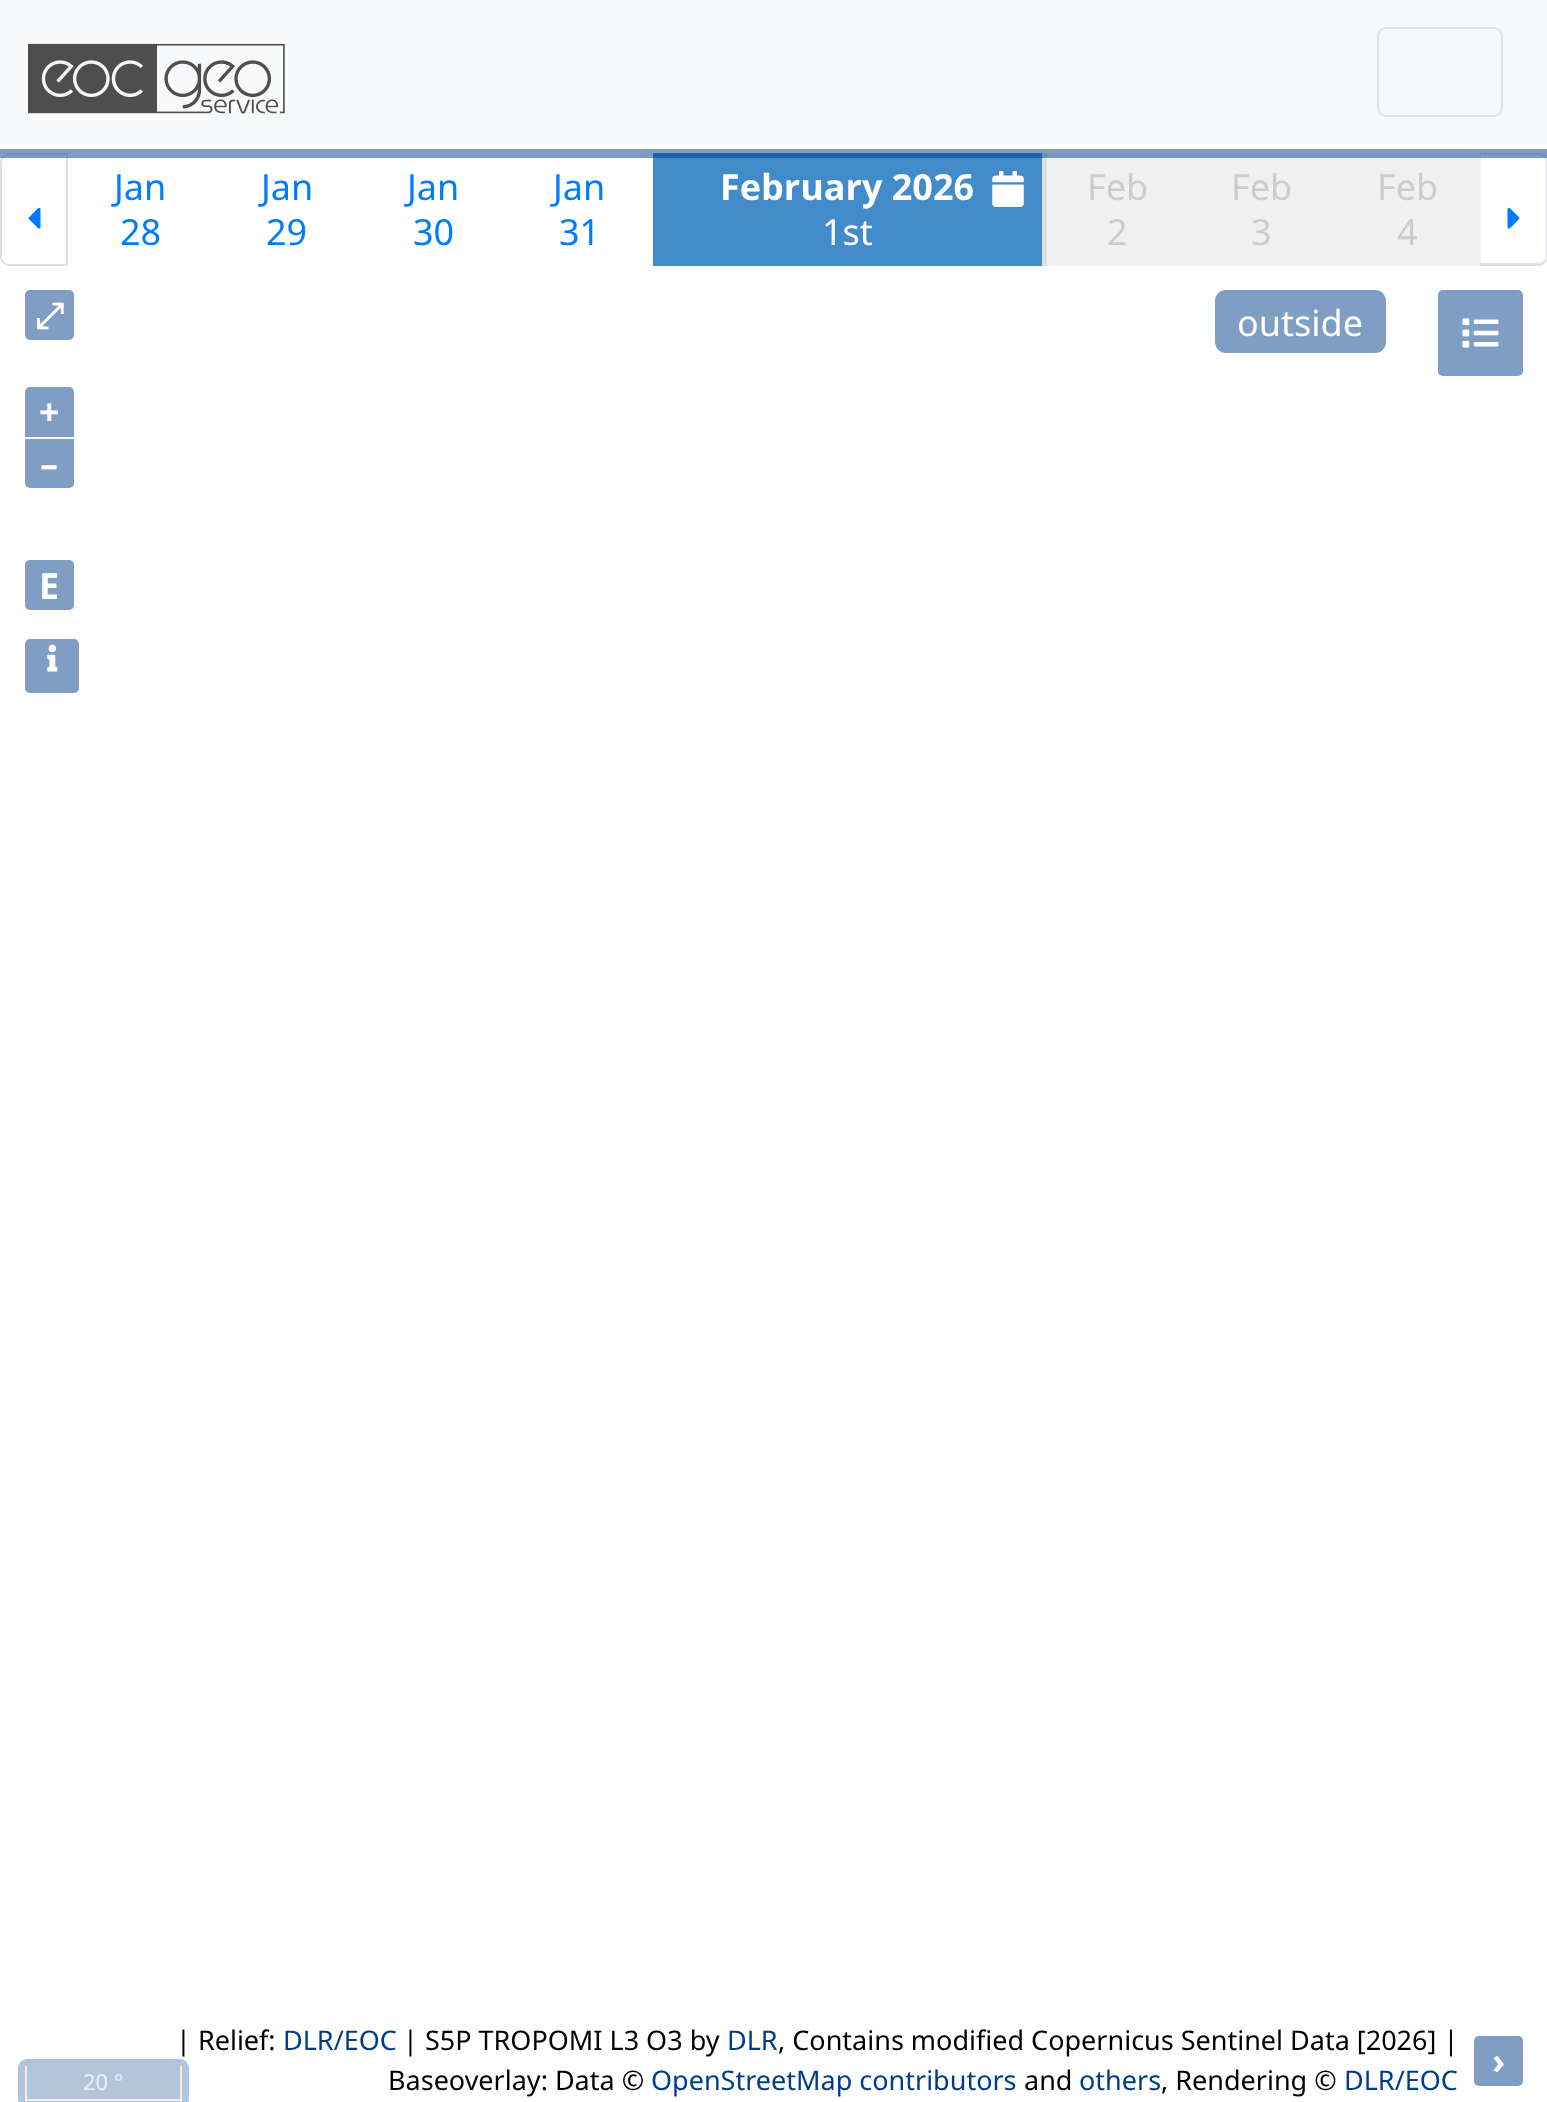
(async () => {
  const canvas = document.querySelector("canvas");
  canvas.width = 1547;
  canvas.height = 2102;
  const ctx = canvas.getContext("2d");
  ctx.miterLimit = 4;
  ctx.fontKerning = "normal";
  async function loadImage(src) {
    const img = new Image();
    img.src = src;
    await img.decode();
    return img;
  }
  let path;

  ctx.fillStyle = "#ffffff";
  ctx.fillRect(0, 0, 1547, 2102);
  ctx.fillStyle = "#f8f9fa";
  ctx.fillRect(0, 0, 1547, 144);
  ctx.drawImage(await loadImage("img/1.png"), 28, 43, 257, 71);
  ctx.beginPath();
  ctx.roundRect(1378, 28, 124, 88, 8);
  ctx.strokeStyle = "#dfe0e1";
  ctx.lineWidth = 2;
  ctx.stroke();
  ctx.beginPath();
  ctx.roundRect(1, 154, 66, 111, [8, 0, 0, 8]);
  ctx.strokeStyle = "#dee2e6";
  ctx.stroke();
  for (const [x, y, w, h, color] of [
    [653, 153, 389, 113, "#428bca"],
    [1047, 153, 434, 113, "#f0f0f0"],
    [1042, 153, 5, 113, "#dddddd"],
  ]) {
    ctx.fillStyle = color;
    ctx.fillRect(x, y, w, h);
  }
  ctx.fillStyle = "#dee2e6";
  path = new Path2D("M1480 153H1539C1544 153 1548 157 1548 162V256C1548 261 1544 266 1539 266H1480ZM1480 155H1539C1543 155 1546 158 1546 162V256C1546 260 1543 263 1539 263H1480Z");
  ctx.fill(path, "evenodd");
  ctx.fillStyle = "rgba(0, 60, 136, 0.5)";
  ctx.fillRect(0, 149, 1547, 9);
  ctx.drawImage(await loadImage("img/2.png"), 28, 207, 13, 22);
  ctx.drawImage(await loadImage("img/3.png"), 992, 171, 32, 36);
  ctx.drawImage(await loadImage("img/4.png"), 1507, 207, 13, 22);
  ctx.fillStyle = "#809ec4";
  ctx.beginPath();
  ctx.roundRect(25, 290, 49, 50, 5);
  ctx.fill();
  ctx.beginPath();
  ctx.roundRect(1215, 290, 171, 63, 11);
  ctx.fill();
  ctx.beginPath();
  ctx.roundRect(1438, 290, 85, 86, 5);
  ctx.fill();
  ctx.drawImage(await loadImage("img/5.png"), 1462, 318, 37, 30);
  ctx.beginPath();
  ctx.roundRect(25, 387, 49, 50, [5, 5, 0, 0]);
  ctx.fill();
  ctx.beginPath();
  ctx.roundRect(25, 439, 49, 49, [0, 0, 5, 5]);
  ctx.fill();
  ctx.beginPath();
  ctx.roundRect(25, 560, 49, 50, 5);
  ctx.fill();
  ctx.beginPath();
  ctx.roundRect(25, 639, 54, 54, 5);
  ctx.fill();
  ctx.drawImage(await loadImage("img/6.png"), 47, 644, 11, 28);
  ctx.fillStyle = "#b3c5db";
  ctx.beginPath();
  ctx.roundRect(18, 2059, 171, 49, 9);
  ctx.fill();
  for (const [x, y, w, h, color] of [
    [180, 2066, 2, 36, "#eeeeee"],
    [25, 2099, 157, 2, "#eeeeee"],
    [25, 2066, 2, 36, "#eeeeee"],
  ]) {
    ctx.fillStyle = color;
    ctx.fillRect(x, y, w, h);
  }
  ctx.fillStyle = "#809ec4";
  ctx.beginPath();
  ctx.roundRect(1474, 2036, 49, 50, 5);
  ctx.fill();
  ctx.font = "36px Noto Sans";
  ctx.fillStyle = "#007bff";
  for (const [text, x, y] of [
    ["Jan", 114, 200],
    ["28", 120, 245],
    ["Jan", 261, 200],
    ["29", 266, 245],
    ["Jan", 407, 200],
    ["30", 413, 245],
    ["Jan", 553, 200],
    ["31", 559, 245],
  ]) {
    ctx.fillText(text, x, y);
  }
  ctx.font = "bold 36px Noto Sans";
  ctx.fillStyle = "#ffffff";
  ctx.fillText("February 2026", 720, 200);
  ctx.font = "36px Noto Sans";
  ctx.fillText("1st", 822, 245);
  ctx.fillStyle = "#cccccc";
  for (const [text, x, y] of [
    ["Feb", 1087, 200],
    ["2", 1107, 245],
    ["Feb", 1231, 200],
    ["3", 1251, 245],
    ["Feb", 1377, 200],
    ["4", 1397, 245],
  ]) {
    ctx.fillText(text, x, y);
  }
  ctx.font = "bold 36px FreeSerif";
  ctx.fillStyle = "#ffffff";
  ctx.fillText("⤢", 35, 328);
  ctx.font = "36px Noto Sans";
  ctx.fillText("outside", 1237, 336);
  ctx.font = "bold 36px Noto Sans";
  for (const [text, x, y] of [
    ["+", 39, 425],
    ["–", 40, 477],
    ["E", 39, 599],
  ]) {
    ctx.fillText(text, x, y);
  }
  ctx.font = "22px Noto Sans";
  ctx.fillStyle = "#eeeeee";
  ctx.fillText("20 °", 83, 2090);
  ctx.font = "27px Noto Sans";
  ctx.fillStyle = "#000000";
  ctx.fillText("| Relief:", 176, 2050);
  ctx.fillStyle = "#003c88";
  ctx.fillText("DLR/EOC", 283, 2050);
  ctx.fillStyle = "#000000";
  ctx.fillText("| S5P TROPOMI L3 O3 by", 403, 2050);
  ctx.fillStyle = "#003c88";
  ctx.fillText("DLR", 727, 2050);
  ctx.fillStyle = "#000000";
  ctx.fillText(", Contains modified Copernicus Sentinel Data [2026] |", 778, 2050);
  ctx.fillText("Baseoverlay: Data ©", 388, 2090);
  ctx.fillStyle = "#003c88";
  ctx.fillText("OpenStreetMap contributors", 651, 2090);
  ctx.fillStyle = "#000000";
  ctx.fillText("and", 1024, 2090);
  ctx.fillStyle = "#003c88";
  ctx.fillText("others", 1079, 2090);
  ctx.fillStyle = "#000000";
  ctx.fillText(", Rendering ©", 1161, 2090);
  ctx.fillStyle = "#003c88";
  ctx.fillText("DLR/EOC", 1344, 2090);
  ctx.font = "bold 36px Noto Sans";
  ctx.fillStyle = "#ffffff";
  ctx.fillText("›", 1492, 2074);
})();
